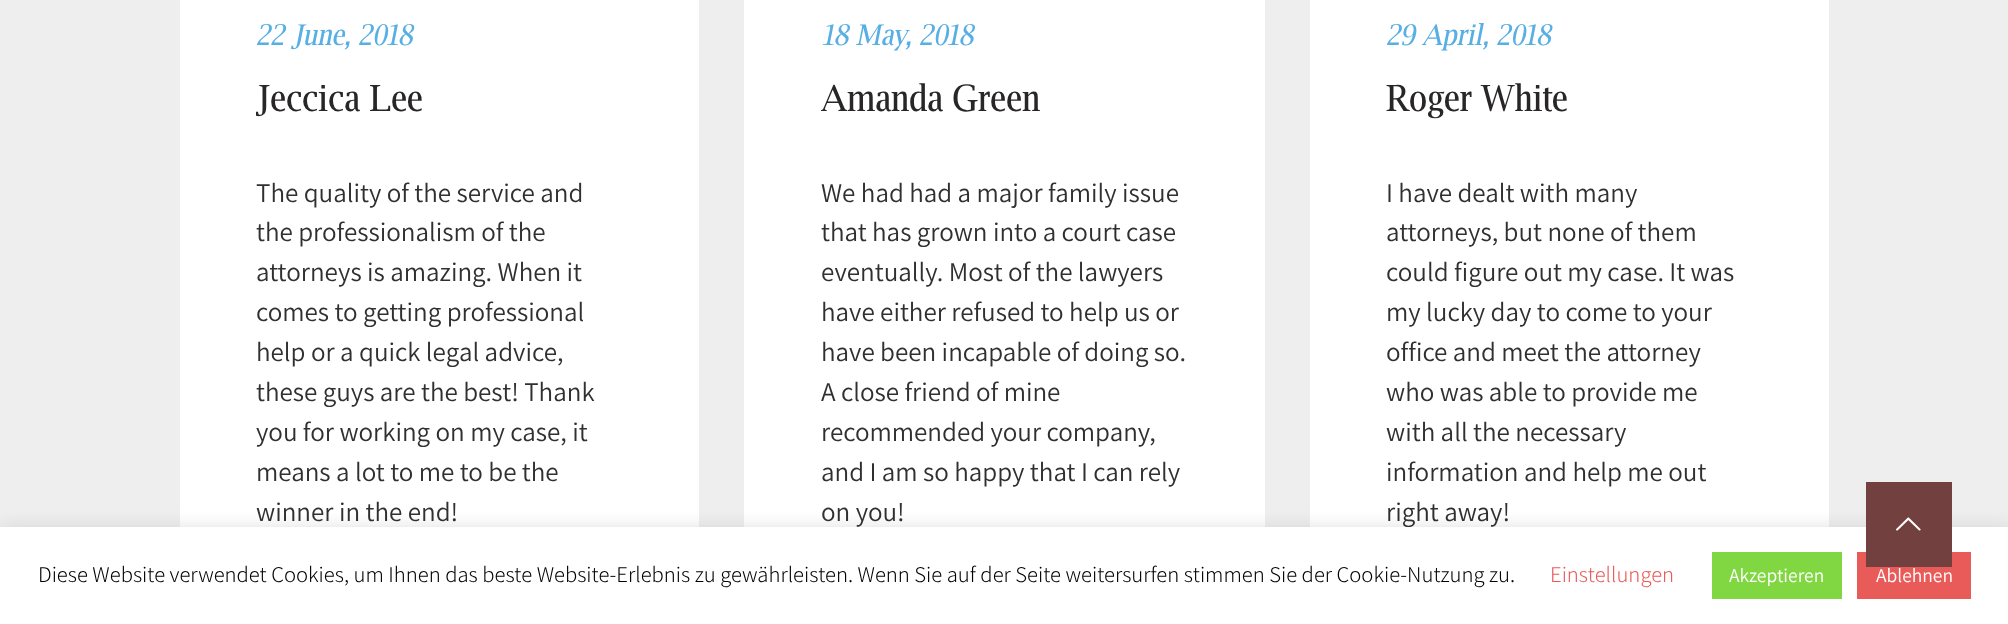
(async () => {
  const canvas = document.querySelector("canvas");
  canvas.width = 2008;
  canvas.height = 624;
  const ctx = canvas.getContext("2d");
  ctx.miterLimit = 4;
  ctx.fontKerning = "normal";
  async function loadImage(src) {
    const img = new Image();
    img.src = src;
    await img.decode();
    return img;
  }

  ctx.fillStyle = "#eeeeee";
  ctx.fillRect(0, 0, 2008, 624);
  for (const [x, y, w, h, color] of [
    [180, 0, 519, 527, "#ffffff"],
    [744, 0, 521, 527, "#ffffff"],
    [1310, 0, 519, 527, "#ffffff"],
  ]) {
    ctx.fillStyle = color;
    ctx.fillRect(x, y, w, h);
  }
  ctx.fillStyle = "rgba(172, 171, 171, 0.3)";
  ctx.filter = "blur(7.5px)";
  ctx.beginPath();
  ctx.rect(0, 525, 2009, 98);
  ctx.fill();
  ctx.filter = "none";
  ctx.font = "italic 28.5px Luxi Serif";
  ctx.fillStyle = "#57afe3";
  ctx.fillText("22 June, 2018", 256, 45);
  ctx.font = "36px Luxi Serif";
  ctx.fillStyle = "#282626";
  ctx.fillText("Jeccica Lee", 256, 111);
  ctx.font = "27px Assistant";
  ctx.fillStyle = "#303030";
  for (const [text, x, y] of [
    ["The quality of the service and", 256, 202],
    ["the professionalism of the", 256, 241],
    ["attorneys is amazing. When it", 256, 281],
    ["comes to getting professional", 256, 321],
    ["help or a quick legal advice,", 256, 361],
    ["these guys are the best! Thank", 256, 401],
    ["you for working on my case, it", 256, 441],
    ["means a lot to me to be the", 256, 481],
    ["winner in the end!", 256, 521],
  ]) {
    ctx.fillText(text, x, y);
  }
  ctx.font = "italic 28.5px Luxi Serif";
  ctx.fillStyle = "#57afe3";
  ctx.fillText("18 May, 2018", 821, 45);
  ctx.font = "36px Luxi Serif";
  ctx.fillStyle = "#282626";
  ctx.fillText("Amanda Green", 821, 111);
  ctx.font = "27px Assistant";
  ctx.fillStyle = "#303030";
  for (const [text, x, y] of [
    ["We had had a major family issue", 821, 202],
    ["that has grown into a court case", 821, 241],
    ["eventually. Most of the lawyers", 821, 281],
    ["have either refused to help us or", 821, 321],
    ["have been incapable of doing so.", 821, 361],
    ["A close friend of mine", 821, 401],
    ["recommended your company,", 821, 441],
    ["and I am so happy that I can rely", 821, 481],
    ["on you!", 821, 521],
  ]) {
    ctx.fillText(text, x, y);
  }
  ctx.font = "italic 28.5px Luxi Serif";
  ctx.fillStyle = "#57afe3";
  ctx.fillText("29 April, 2018", 1386, 45);
  ctx.font = "36px Luxi Serif";
  ctx.fillStyle = "#282626";
  ctx.fillText("Roger White", 1386, 111);
  ctx.font = "27px Assistant";
  ctx.fillStyle = "#303030";
  for (const [text, x, y] of [
    ["I have dealt with many", 1386, 202],
    ["attorneys, but none of them", 1386, 241],
    ["could figure out my case. It was", 1386, 281],
    ["my lucky day to come to your", 1386, 321],
    ["office and meet the attorney", 1386, 361],
    ["who was able to provide me", 1386, 401],
    ["with all the necessary", 1386, 441],
    ["information and help me out", 1386, 481],
    ["right away!", 1386, 521],
  ]) {
    ctx.fillText(text, x, y);
  }
  ctx.fillStyle = "#ffffff";
  ctx.fillRect(0, 527, 2008, 97);
  ctx.font = "300 22.5px Assistant";
  ctx.fillStyle = "#000000";
  ctx.fillText("Diese Website verwendet Cookies, um Ihnen das beste Website-Erlebnis zu gewährleisten. Wenn Sie auf der Seite weitersurfen stimmen Sie der Cookie-Nutzung zu.", 38, 582);
  ctx.fillStyle = "#e85b59";
  ctx.fillText("Einstellungen", 1550, 582);
  ctx.fillStyle = "#81d742";
  ctx.fillRect(1712, 552, 130, 47);
  ctx.font = "19.5px Assistant";
  ctx.fillStyle = "#ffffff";
  ctx.fillText("Akzeptieren", 1729, 582);
  ctx.fillStyle = "#e85b59";
  ctx.fillRect(1857, 552, 114, 47);
  ctx.fillStyle = "#71403f";
  ctx.fillRect(1866, 482, 86, 85);
  ctx.drawImage(await loadImage("img/1.png"), 1896, 517, 25, 14);
  ctx.fillStyle = "#ffffff";
  ctx.fillText("Ablehnen", 1876, 582);
})();
